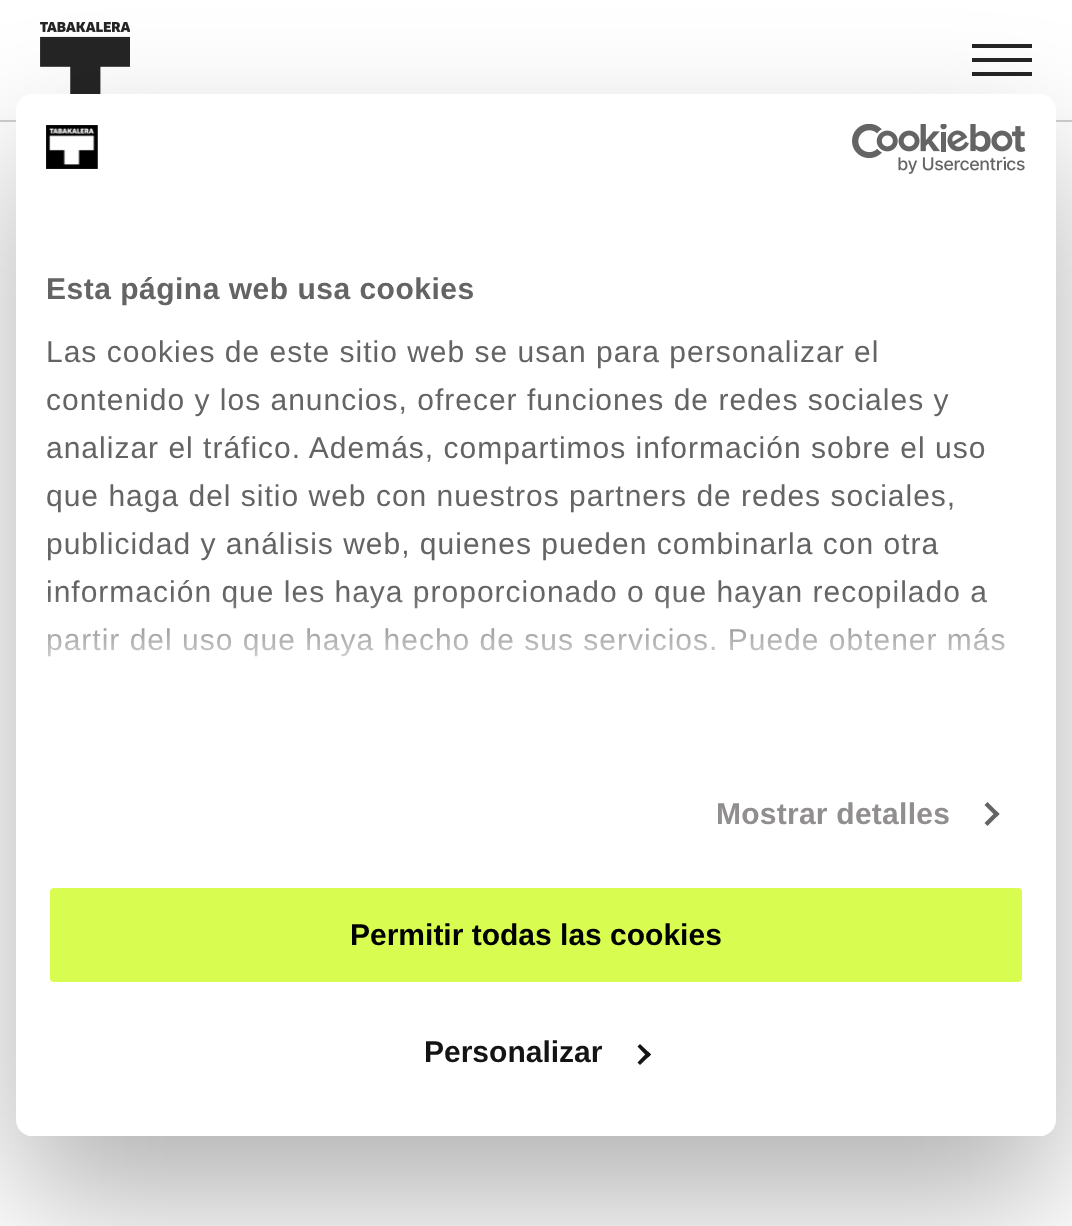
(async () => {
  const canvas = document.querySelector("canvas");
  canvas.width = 1072;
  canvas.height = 1226;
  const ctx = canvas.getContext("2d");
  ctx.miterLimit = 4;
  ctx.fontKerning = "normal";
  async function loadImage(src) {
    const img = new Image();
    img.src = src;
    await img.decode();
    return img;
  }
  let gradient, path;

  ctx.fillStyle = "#ffffff";
  ctx.fillRect(0, 0, 1072, 1226);
  ctx.fillStyle = "#d0d0d0";
  ctx.fillRect(0, 120, 1072, 2);
  ctx.drawImage(await loadImage("img/1.png"), 40, 22, 90, 72);
  for (const [x, y, w, h, color] of [
    [972, 44, 60, 4, "#252525"],
    [972, 58, 60, 4, "#252525"],
    [972, 72, 60, 4, "#252525"],
  ]) {
    ctx.fillStyle = color;
    ctx.fillRect(x, y, w, h);
  }
  ctx.fillStyle = "rgba(0, 0, 0, 0.3)";
  ctx.filter = "blur(68px)";
  ctx.beginPath();
  ctx.roundRect(16, 158, 1040, 1042, 16);
  ctx.fill();
  ctx.filter = "none";
  ctx.fillStyle = "#ffffff";
  ctx.beginPath();
  ctx.roundRect(16, 94, 1040, 1042, 16);
  ctx.fill();
  ctx.drawImage(await loadImage("img/2.png"), 46, 125, 52, 44);
  ctx.drawImage(await loadImage("img/3.png"), 852, 124, 174, 50);
  ctx.fillStyle = "#646464";
  path = new Path2D("M987.5 802L999.5 814L996.5 817L984.5 805Z");
  ctx.fill(path);
  path = new Path2D("M996.5 811L999.5 814L987.5 826L984.5 823Z");
  ctx.fill(path);
  ctx.save();
  ctx.beginPath();
  ctx.roundRect(16, 94, 1040, 1042, 16);
  ctx.clip();
  ctx.fillStyle = "#ffffff";
  ctx.fillRect(16, 1134, 1040, 2);
  ctx.restore();
  ctx.fillStyle = "#d8fd50";
  ctx.beginPath();
  ctx.roundRect(48, 886, 976, 98, 6);
  ctx.fill();
  ctx.strokeStyle = "#ffffff";
  ctx.lineWidth = 4;
  ctx.stroke();
  ctx.fillStyle = "#141414";
  path = new Path2D("M640 1044L651 1054.5L648 1057.5L637.5 1046.5Z");
  ctx.fill(path);
  path = new Path2D("M648 1051.5L651 1054.5L640 1065L637.5 1062.5Z");
  ctx.fill(path);
  ctx.letterSpacing = "0.5px";
  ctx.font = "bold 30px Liberation Sans";
  ctx.fillStyle = "#646464";
  ctx.fillText("Esta página web usa cookies", 46, 299);
  ctx.letterSpacing = "1px";
  ctx.font = "30px Liberation Sans";
  for (const [text, x, y] of [
    ["Las cookies de este sitio web se usan para personalizar el", 46, 362],
    ["contenido y los anuncios, ofrecer funciones de redes sociales y", 46, 410],
    ["analizar el tráfico. Además, compartimos información sobre el uso", 46, 458],
    ["que haga del sitio web con nuestros partners de redes sociales,", 46, 506],
    ["publicidad y análisis web, quienes pueden combinarla con otra", 46, 554],
    ["información que les haya proporcionado o que hayan recopilado a", 46, 602],
    ["partir del uso que haya hecho de sus servicios. Puede obtener más", 46, 650],
  ]) {
    ctx.fillText(text, x, y);
  }
  gradient = ctx.createLinearGradient(523, 743, 523, 593);
  gradient.addColorStop(0, "#ffffff");
  gradient.addColorStop(0.5, "rgba(255, 255, 255, 0.8)");
  gradient.addColorStop(1, "rgba(255, 255, 255, 0)");
  ctx.fillStyle = gradient;
  ctx.fillRect(47, 595, 958, 62);
  ctx.letterSpacing = "0.25px";
  ctx.font = "bold 30px Liberation Sans";
  ctx.fillStyle = "#908e8e";
  ctx.fillText("Mostrar detalles", 716, 824);
  ctx.letterSpacing = "0px";
  ctx.fillStyle = "#000000";
  ctx.fillText("Permitir todas las cookies", 350, 945);
  ctx.fillStyle = "#141414";
  ctx.fillText("Personalizar", 424, 1062);
})();
